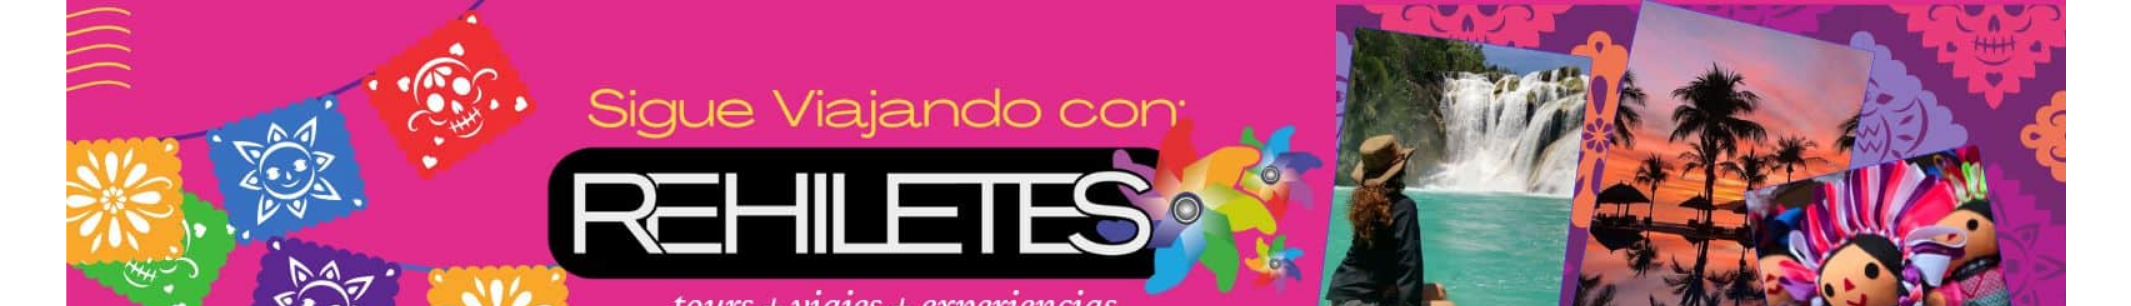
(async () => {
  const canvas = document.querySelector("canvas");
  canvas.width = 2131;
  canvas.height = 306;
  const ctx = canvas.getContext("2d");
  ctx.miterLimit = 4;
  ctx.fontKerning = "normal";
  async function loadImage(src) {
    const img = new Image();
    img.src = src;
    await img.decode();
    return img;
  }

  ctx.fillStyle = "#ffffff";
  ctx.fillRect(0, 0, 2131, 306);
  ctx.drawImage(await loadImage("img/1.png"), 66, 0, 2000, 306);
})();
